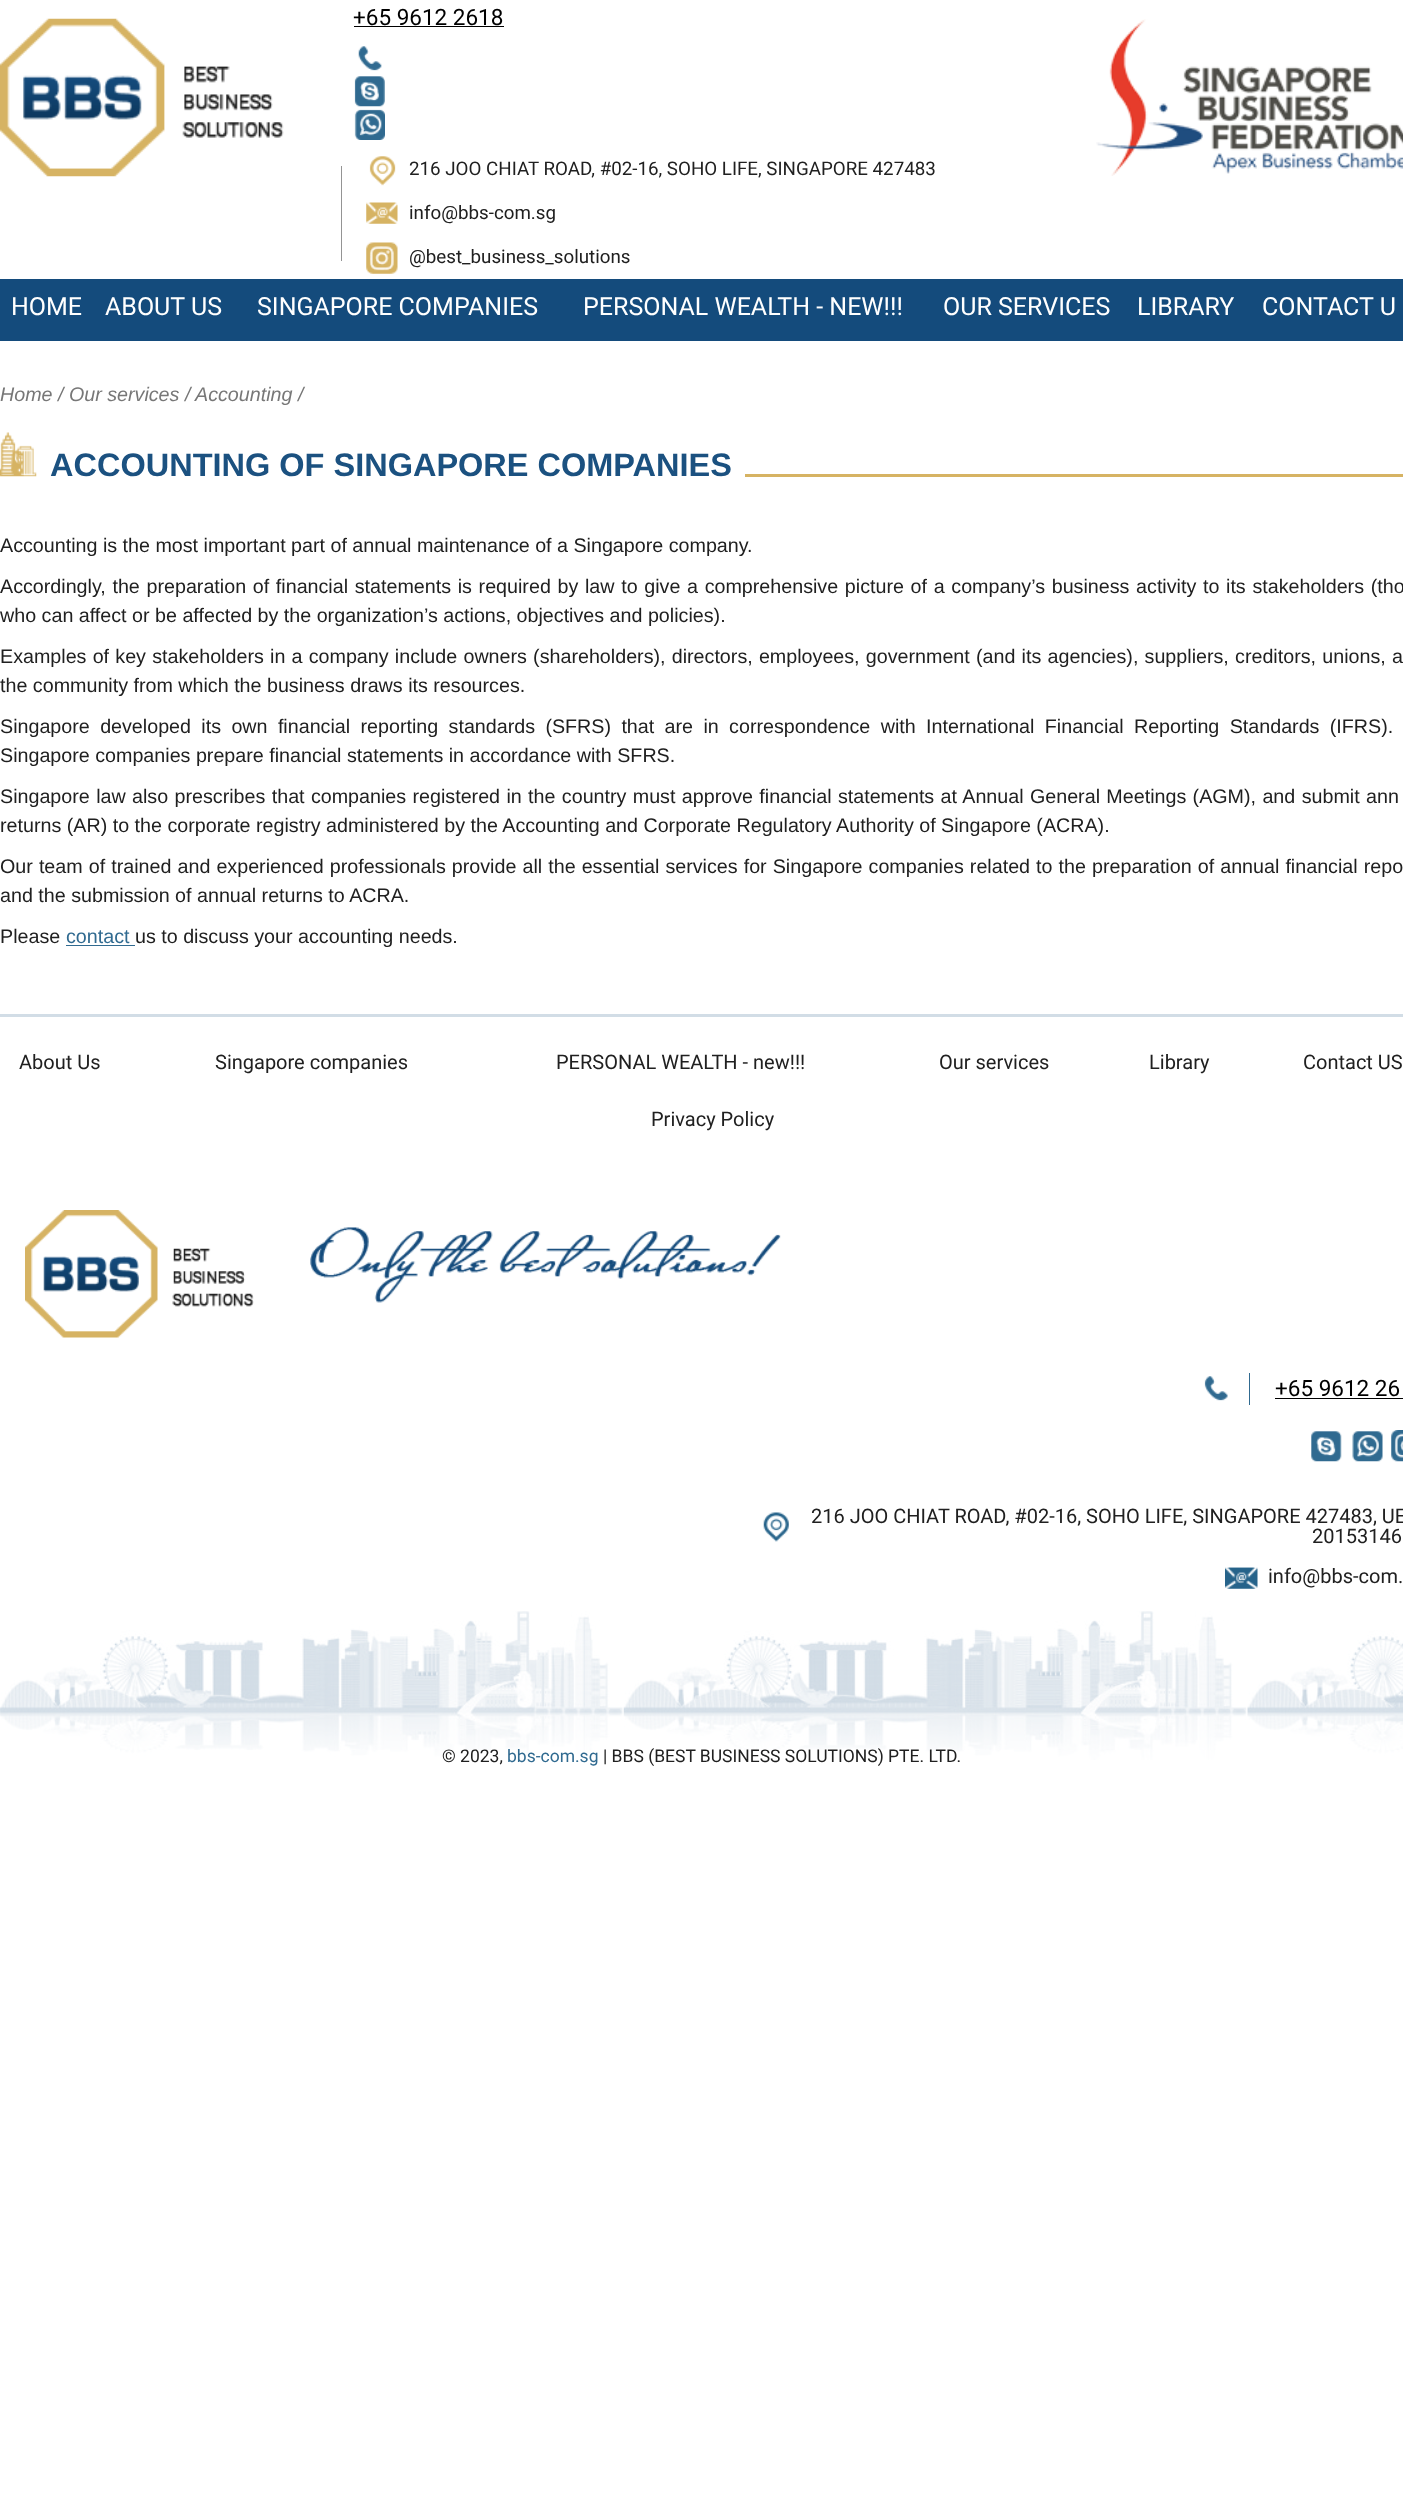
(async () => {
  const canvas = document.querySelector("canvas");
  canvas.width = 1403;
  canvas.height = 2519;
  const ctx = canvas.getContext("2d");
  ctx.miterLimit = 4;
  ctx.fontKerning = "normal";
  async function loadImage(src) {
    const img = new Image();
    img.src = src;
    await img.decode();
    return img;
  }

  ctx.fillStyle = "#ffffff";
  ctx.fillRect(0, 0, 1403, 2519);
  ctx.drawImage(await loadImage("img/1.png"), 0, 18, 284, 159);
  ctx.fillStyle = "#000000";
  ctx.fillRect(354, 26, 150, 1);
  ctx.drawImage(await loadImage("img/2.png"), 358, 46, 24, 25);
  ctx.drawImage(await loadImage("img/3.png"), 354, 76, 31, 31);
  ctx.drawImage(await loadImage("img/4.png"), 354, 109, 31, 31);
  ctx.fillStyle = "#949494";
  ctx.fillRect(341, 166, 1, 95);
  ctx.drawImage(await loadImage("img/5.png"), 369, 156, 27, 30);
  ctx.drawImage(await loadImage("img/6.png"), 366, 202, 32, 22);
  ctx.drawImage(await loadImage("img/7.png"), 366, 242, 32, 32);
  ctx.drawImage(await loadImage("img/8.png"), 1096, 19, 307, 157);
  ctx.fillStyle = "#144b7c";
  ctx.fillRect(0, 279, 1403, 62);
  ctx.drawImage(await loadImage("img/9.png"), 0, 432, 37, 45);
  ctx.fillStyle = "#d6b363";
  ctx.fillRect(745, 474, 658, 3);
  ctx.fillStyle = "#306a90";
  ctx.fillRect(66, 945, 69, 1);
  ctx.drawImage(await loadImage("img/10.png"), 0, 1611, 1403, 149);
  ctx.fillStyle = "#d2dde6";
  ctx.fillRect(0, 1014, 1403, 3);
  ctx.drawImage(await loadImage("img/11.png"), 25, 1210, 229, 128);
  ctx.drawImage(await loadImage("img/12.png"), 310, 1227, 471, 76);
  ctx.fillStyle = "#306a90";
  ctx.fillRect(1249, 1373, 1, 32);
  ctx.drawImage(await loadImage("img/13.png"), 1204, 1376, 24, 25);
  ctx.fillStyle = "#000000";
  ctx.fillRect(1275, 1398, 128, 1);
  ctx.drawImage(await loadImage("img/14.png"), 1311, 1431, 31, 31);
  ctx.drawImage(await loadImage("img/15.png"), 1352, 1431, 31, 31);
  ctx.drawImage(await loadImage("img/16.png"), 1391, 1430, 12, 32);
  ctx.drawImage(await loadImage("img/17.png"), 763, 1512, 26, 30);
  ctx.drawImage(await loadImage("img/18.png"), 1225, 1567, 33, 22);
  ctx.font = "22.5px Roboto";
  ctx.fillText("+65 9612 2618", 353, 25);
  ctx.font = "18.75px Roboto";
  ctx.fillStyle = "#202020";
  for (const [text, x, y] of [
    ["216 JOO CHIAT ROAD, #02-16, SOHO LIFE, SINGAPORE 427483", 409, 175],
    ["info@bbs-com.sg", 409, 219],
    ["@best_business_solutions", 409, 263],
  ]) {
    ctx.fillText(text, x, y);
  }
  ctx.font = "25px Roboto";
  ctx.fillStyle = "#ffffff";
  for (const [text, x, y] of [
    ["HOME", 11, 315],
    ["ABOUT US", 105, 315],
    ["SINGAPORE COMPANIES", 257, 315],
    ["PERSONAL WEALTH - NEW!!!", 583, 315],
    ["OUR SERVICES", 943, 315],
    ["LIBRARY", 1137, 315],
    ["CONTACT U", 1262, 315],
  ]) {
    ctx.fillText(text, x, y);
  }
  ctx.font = "italic 19.7px Liberation Sans";
  ctx.fillStyle = "#777777";
  ctx.fillText("Home / Our services /", 0, 401);
  ctx.fillText("Accounting /", 195, 401);
  ctx.font = "bold 32.5px Liberation Sans";
  ctx.fillStyle = "#1b5180";
  ctx.fillText("ACCOUNTING OF SINGAPORE COMPANIES", 50, 476);
  ctx.font = "19.7px Liberation Sans";
  ctx.fillStyle = "#202020";
  ctx.fillText("Accounting is the most important part of annual maintenance of a Singapore company.", 0, 552);
  ctx.wordSpacing = "1.2px";
  ctx.fillText("Accordingly, the preparation of financial statements is required by law to give a comprehensive picture of a company’s business activity to its stakeholders (tho", 0, 593);
  ctx.wordSpacing = "0px";
  ctx.fillText("who can affect or be affected by the organization’s actions, objectives and policies).", 0, 622);
  ctx.wordSpacing = "0.75px";
  ctx.fillText("Examples of key stakeholders in a company include owners (shareholders), directors, employees, government (and its agencies), suppliers, creditors, unions, a", 0, 663);
  ctx.wordSpacing = "0px";
  ctx.fillText("the community from which the business draws its resources.", 0, 692);
  ctx.wordSpacing = "4.9px";
  ctx.fillText("Singapore developed its own financial reporting standards (SFRS) that are in correspondence with International Financial Reporting Standards (IFRS).", 0, 733);
  ctx.wordSpacing = "0px";
  ctx.fillText("Singapore companies prepare financial statements in accordance with SFRS.", 0, 762);
  ctx.wordSpacing = "0.9px";
  ctx.fillText("Singapore law also prescribes that companies registered in the country must approve financial statements at Annual General Meetings (AGM), and submit ann", 0, 803);
  ctx.wordSpacing = "0px";
  ctx.fillText("returns (AR) to the corporate registry administered by the Accounting and Corporate Regulatory Authority of Singapore (ACRA).", 0, 832);
  ctx.wordSpacing = "0.6px";
  ctx.fillText("Our team of trained and experienced professionals provide all the essential services for Singapore companies related to the preparation of annual financial repo", 0, 873);
  ctx.wordSpacing = "0px";
  ctx.fillText("and the submission of annual returns to ACRA.", 0, 902);
  ctx.fillText("Please", 0, 943);
  ctx.fillStyle = "#306a90";
  ctx.fillText("contact", 66, 943);
  ctx.fillStyle = "#202020";
  ctx.fillText("us to discuss your accounting needs.", 135, 943);
  ctx.font = "20px Roboto";
  for (const [text, x, y] of [
    ["About Us", 19, 1069],
    ["Singapore companies", 215, 1069],
    ["PERSONAL WEALTH - new!!!", 556, 1069],
    ["Our services", 939, 1069],
    ["Library", 1149, 1069],
    ["Contact US", 1303, 1069],
    ["Privacy Policy", 651, 1126],
  ]) {
    ctx.fillText(text, x, y);
  }
  ctx.font = "22.5px Roboto";
  ctx.fillStyle = "#000000";
  ctx.fillText("+65 9612 26", 1275, 1396);
  ctx.font = "20px Roboto";
  ctx.fillStyle = "#202020";
  for (const [text, x, y] of [
    ["216 JOO CHIAT ROAD, #02-16, SOHO LIFE, SINGAPORE 427483, UE", 811, 1523],
    ["20153146", 1312, 1543],
    ["info@bbs-com.", 1268, 1583],
  ]) {
    ctx.fillText(text, x, y);
  }
  ctx.font = "17.5px Roboto";
  ctx.fillText("© 2023,", 442, 1762);
  ctx.fillStyle = "#306a90";
  ctx.fillText("bbs-com.sg", 507, 1762);
  ctx.fillStyle = "#202020";
  ctx.fillText("| BBS (BEST BUSINESS SOLUTIONS) PTE. LTD.", 603, 1762);
})();
